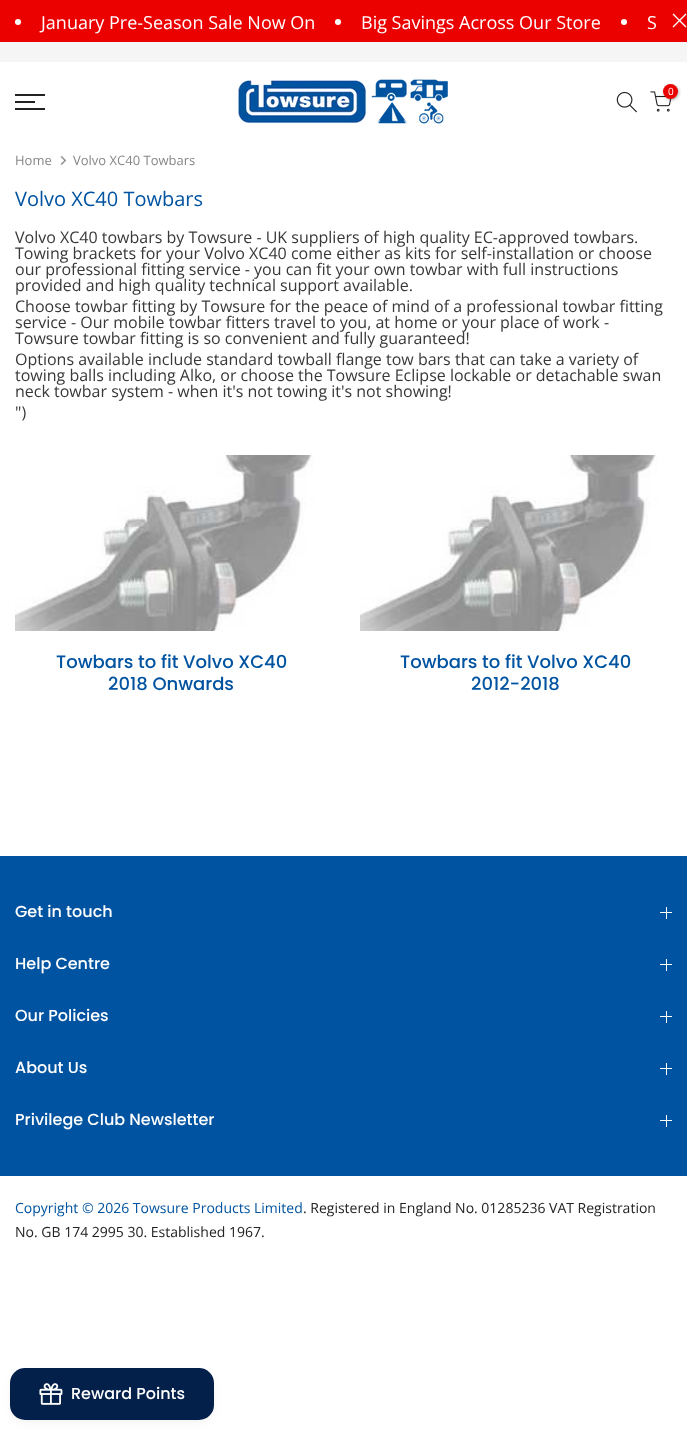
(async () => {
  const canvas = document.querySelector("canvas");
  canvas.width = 687;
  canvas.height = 1430;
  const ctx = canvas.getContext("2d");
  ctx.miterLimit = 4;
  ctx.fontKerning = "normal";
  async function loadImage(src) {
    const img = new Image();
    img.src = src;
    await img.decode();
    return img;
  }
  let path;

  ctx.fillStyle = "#ffffff";
  ctx.fillRect(0, 0, 687, 1430);
  ctx.fillStyle = "#ec0101";
  ctx.fillRect(0, 0, 687, 42);
  ctx.fillStyle = "#ffffff";
  ctx.beginPath();
  ctx.arc(18, 22, 3, 0, Math.PI * 2);
  ctx.fill();
  ctx.beginPath();
  ctx.arc(338, 22, 3, 0, Math.PI * 2);
  ctx.fill();
  ctx.beginPath();
  ctx.arc(624, 22, 3, 0, Math.PI * 2);
  ctx.fill();
  path = new Path2D("M686 14L673 27M686 27L673 14");
  ctx.strokeStyle = "#ffffff";
  ctx.lineWidth = 1.4;
  ctx.stroke(path);
  ctx.fillStyle = "#f5f5f5";
  ctx.fillRect(0, 42, 687, 20);
  ctx.drawImage(await loadImage("img/1.png"), 238, 79, 210, 45);
  ctx.drawImage(await loadImage("img/2.png"), 616, 91, 21, 22);
  ctx.drawImage(await loadImage("img/3.png"), 650, 91, 22, 21);
  ctx.fillStyle = "rgba(0, 0, 0, 0.3)";
  ctx.filter = "blur(1.5px)";
  ctx.beginPath();
  ctx.roundRect(664, 85, 15, 15, 7.5);
  ctx.fill();
  ctx.filter = "none";
  ctx.fillStyle = "#ec0101";
  ctx.beginPath();
  ctx.arc(670.5, 91.5, 7.5, 0, Math.PI * 2);
  ctx.fill();
  for (const [x, y, w, h, color] of [
    [15, 94, 30, 2, "#222222"],
    [15, 101, 20, 2, "#222222"],
    [15, 108, 30, 2, "#222222"],
  ]) {
    ctx.fillStyle = color;
    ctx.fillRect(x, y, w, h);
  }
  ctx.drawImage(await loadImage("img/4.png"), 60, 156, 7, 9);
  ctx.drawImage(await loadImage("img/5.png"), 15, 455, 299, 176);
  ctx.drawImage(await loadImage("img/6.png"), 360, 455, 298, 176);
  for (const [x, y, w, h, color] of [
    [0, 856, 687, 320, "#0053a0"],
    [666, 907, 1, 12, "#ffffff"],
    [660, 912, 12, 1, "#ffffff"],
    [666, 959, 1, 12, "#ffffff"],
    [660, 964, 12, 1, "#ffffff"],
    [666, 1011, 1, 12, "#ffffff"],
    [660, 1016, 12, 1, "#ffffff"],
    [666, 1063, 1, 12, "#ffffff"],
    [660, 1068, 12, 1, "#ffffff"],
    [666, 1115, 1, 12, "#ffffff"],
    [660, 1120, 12, 1, "#ffffff"],
  ]) {
    ctx.fillStyle = color;
    ctx.fillRect(x, y, w, h);
  }
  ctx.fillStyle = "rgba(68, 68, 68, 0.08)";
  ctx.filter = "blur(4px)";
  ctx.beginPath();
  ctx.roundRect(12, 1374, 200, 48, 13);
  ctx.fill();
  ctx.filter = "none";
  ctx.fillStyle = "#02204a";
  ctx.beginPath();
  ctx.roundRect(10, 1368, 204, 52, 15);
  ctx.fill();
  ctx.drawImage(await loadImage("img/7.png"), 39, 1383, 24, 22);
  ctx.font = "18px Open Sans";
  ctx.fillStyle = "#ffffff";
  for (const [text, x, y] of [
    ["January Pre-Season Sale Now On", 41, 29],
    ["Big Savings Across Our Store", 361, 29],
    ["S", 647, 29],
  ]) {
    ctx.fillText(text, x, y);
  }
  ctx.font = "10px Open Sans";
  ctx.fillText("0", 668, 95);
  ctx.font = "13px Open Sans";
  ctx.fillStyle = "#878787";
  ctx.fillText("Home", 15, 165);
  ctx.fillText("Volvo XC40 Towbars", 73, 165);
  ctx.font = "20px Open Sans";
  ctx.fillStyle = "#0053a0";
  ctx.fillText("Volvo XC40 Towbars", 15, 206);
  ctx.font = "16px Open Sans";
  ctx.fillStyle = "#383838";
  for (const [text, x, y] of [
    ["Volvo XC40 towbars by Towsure - UK suppliers of high quality EC-approved towbars.", 15, 243],
    ["Towing brackets for your Volvo XC40 come either as kits for self-installation or choose", 15, 259],
    ["our professional fitting service - you can fit your own towbar with full instructions", 15, 275],
    ["provided and high quality technical support available.", 15, 291],
    ["Choose towbar fitting by Towsure for the peace of mind of a professional towbar fitting", 15, 312],
    ["service - Our mobile towbar fitters travel to you, at home or your place of work -", 15, 328],
    ["Towsure towbar fitting is so convenient and fully guaranteed!", 15, 344],
    ["Options available include standard towball flange tow bars that can take a variety of", 15, 365],
    ["towing balls including Alko, or choose the Towsure Eclipse lockable or detachable swan", 15, 381],
    ["neck towbar system - when it's not towing it's not showing!", 15, 397],
    ["\")", 15, 418],
  ]) {
    ctx.fillText(text, x, y);
  }
  ctx.font = "500 18px Poppins";
  ctx.fillStyle = "#0053a0";
  for (const [text, x, y] of [
    ["Towbars to fit Volvo XC40", 56, 668],
    ["2018 Onwards", 108, 690],
    ["Towbars to fit Volvo XC40", 400, 668],
    ["2012-2018", 471, 690],
  ]) {
    ctx.fillText(text, x, y);
  }
  ctx.font = "500 16px Poppins";
  ctx.fillStyle = "#ffffff";
  for (const [text, x, y] of [
    ["Get in touch", 15, 917],
    ["Help Centre", 15, 969],
    ["Our Policies", 15, 1021],
    ["About Us", 15, 1073],
    ["Privilege Club Newsletter", 15, 1125],
  ]) {
    ctx.fillText(text, x, y);
  }
  ctx.font = "14px Open Sans";
  ctx.fillStyle = "#0053a0";
  ctx.fillText("Copyright © 2026 Towsure Products Limited", 15, 1213);
  ctx.fillStyle = "#222222";
  ctx.fillText(". Registered in England No. 01285236 VAT Registration", 303, 1213);
  ctx.fillText("No. GB 174 2995 30. Established 1967.", 15, 1237);
  ctx.font = "500 16px Poppins";
  ctx.fillStyle = "#ffffff";
  ctx.fillText("Reward Points", 71, 1399);
})();
